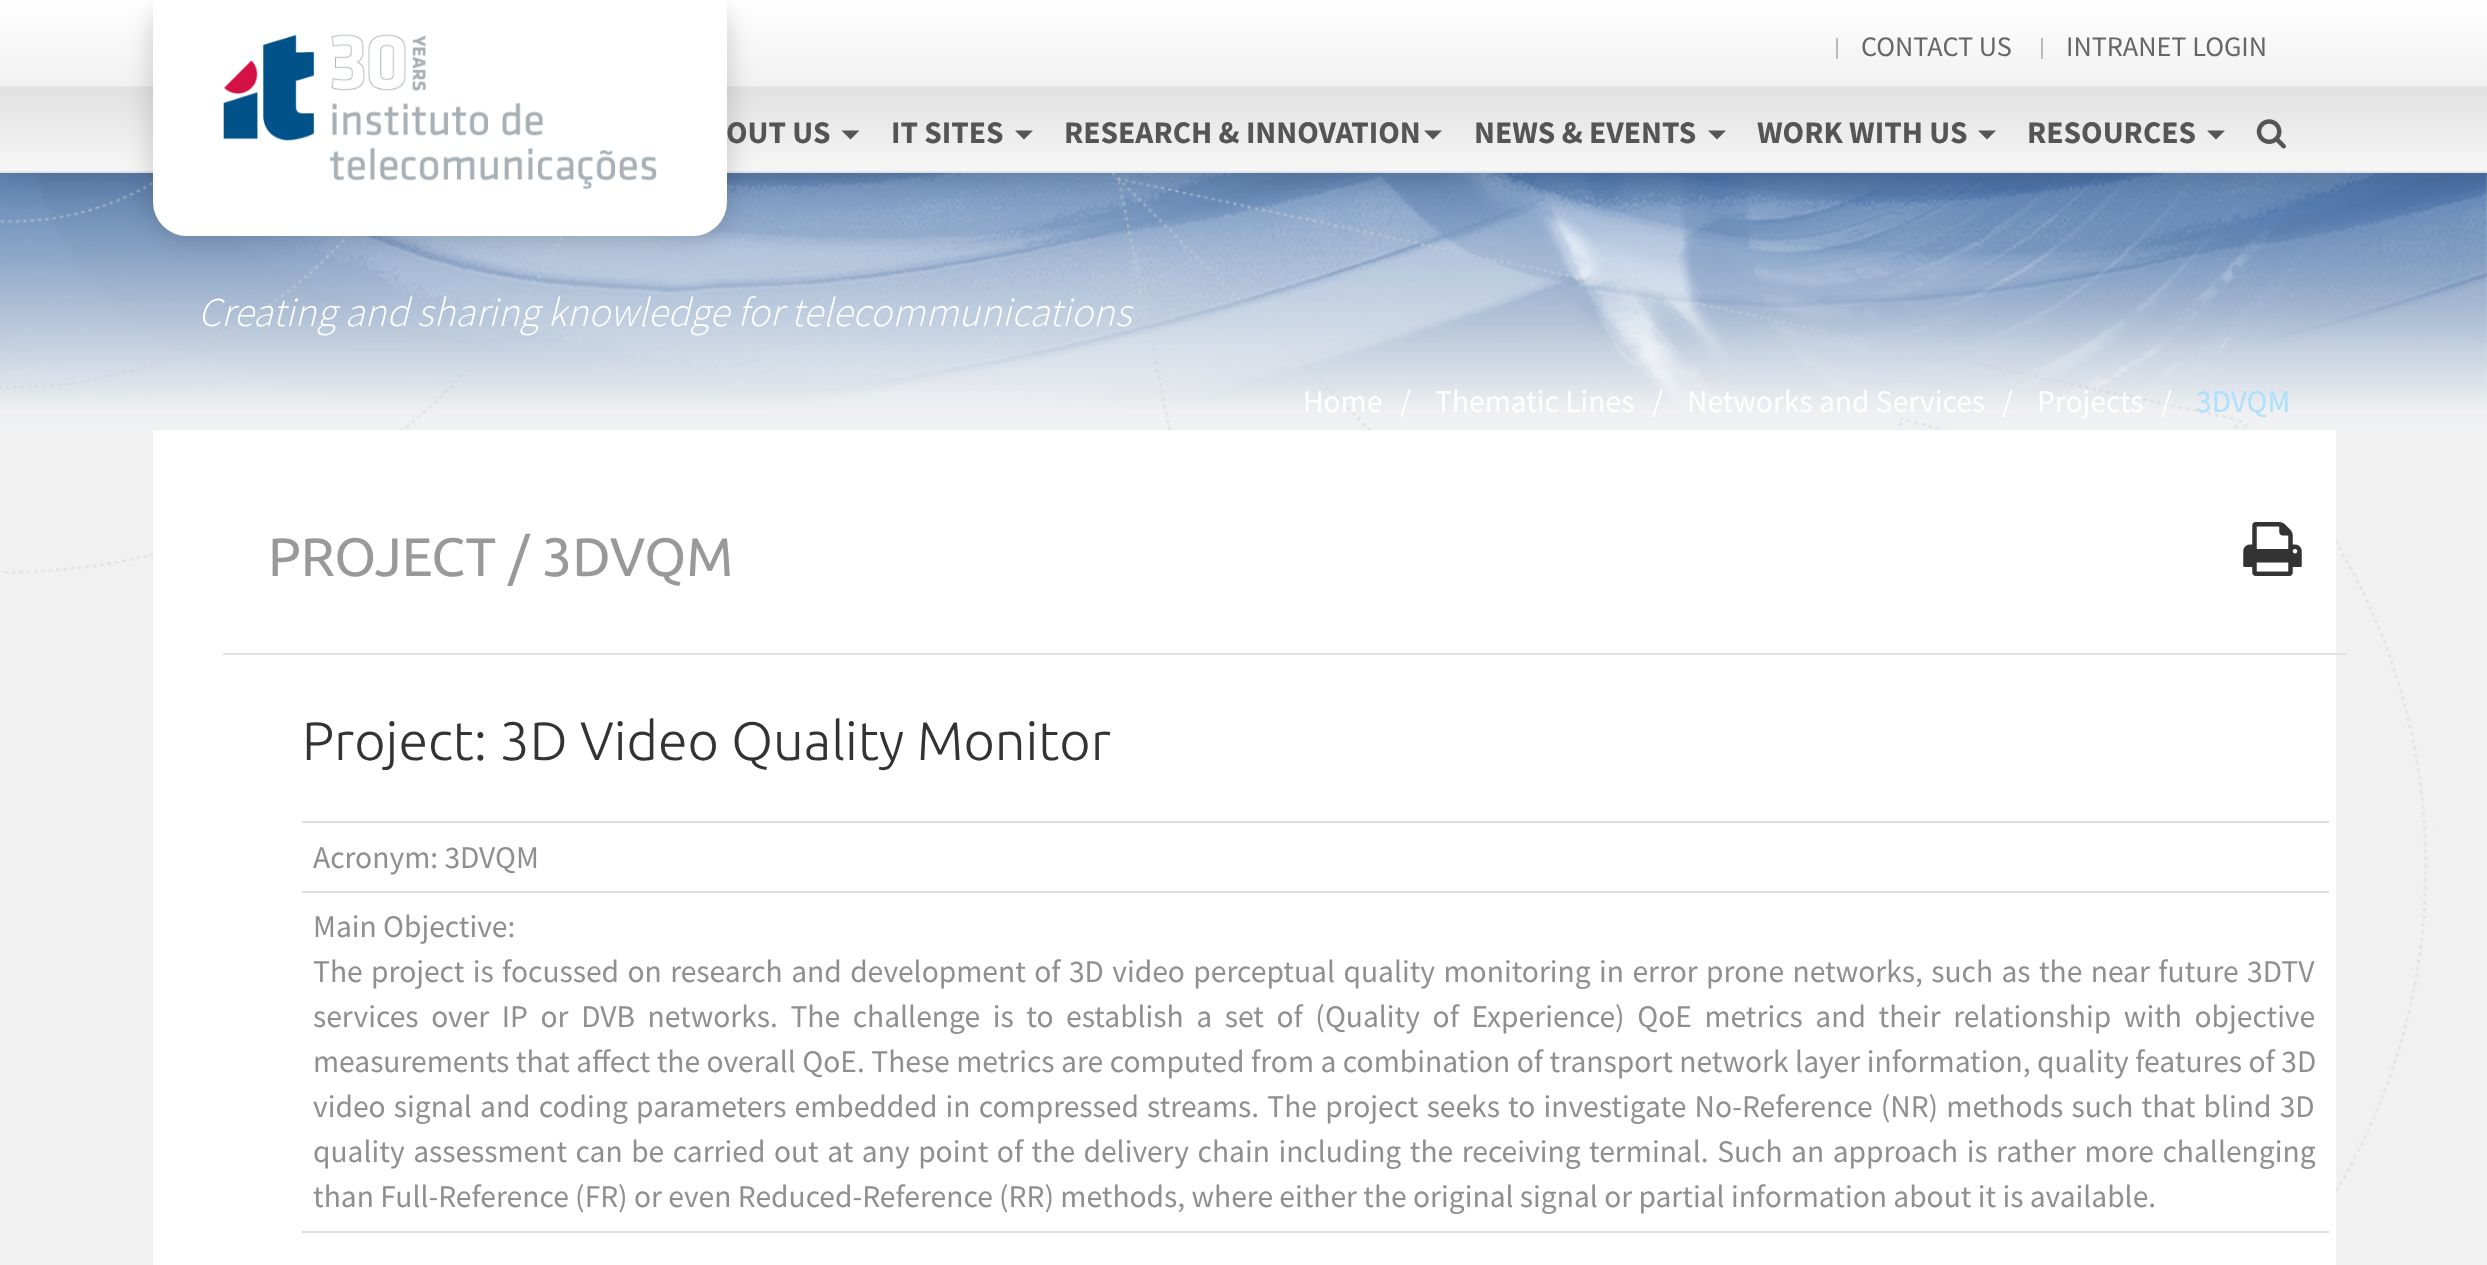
(async () => {
  const canvas = document.querySelector("canvas");
  canvas.width = 2487;
  canvas.height = 1265;
  const ctx = canvas.getContext("2d");
  ctx.miterLimit = 4;
  ctx.fontKerning = "normal";
  async function loadImage(src) {
    const img = new Image();
    img.src = src;
    await img.decode();
    return img;
  }
  let gradient, path;

  ctx.fillStyle = "#ffffff";
  ctx.fillRect(0, 0, 2487, 1265);
  ctx.drawImage(await loadImage("img/1.png"), 0, 173, 2487, 1092);
  ctx.fillStyle = "rgba(0, 0, 0, 0.18)";
  ctx.filter = "blur(18px)";
  ctx.beginPath();
  ctx.rect(0, 0, 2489, 173);
  ctx.fill();
  ctx.filter = "none";
  gradient = ctx.createLinearGradient(1244, 0, 1244, 171);
  gradient.addColorStop(0, "#ffffff");
  gradient.addColorStop(0.5, "#f1f1f1");
  gradient.addColorStop(0.51, "#e1e1e1");
  gradient.addColorStop(1, "#f6f6f6");
  ctx.fillStyle = gradient;
  ctx.fillRect(0, 0, 2487, 171);
  ctx.fillStyle = "#e4e4e4";
  ctx.fillRect(0, 171, 2487, 2);
  ctx.fillStyle = "rgba(0, 0, 0, 0.18)";
  ctx.filter = "blur(13.5px)";
  ctx.beginPath();
  ctx.roundRect(153, 0, 574, 236, 34);
  ctx.fill();
  ctx.filter = "none";
  ctx.fillStyle = "#ffffff";
  ctx.beginPath();
  ctx.roundRect(153, 0, 574, 236, [0, 0, 34, 34]);
  ctx.fill();
  ctx.drawImage(await loadImage("img/2.png"), 223, 34, 434, 156);
  ctx.fillStyle = "#bbbbbb";
  ctx.fillRect(1836, 38, 2, 21);
  ctx.fillRect(2041, 38, 2, 21);
  ctx.fillStyle = "#555555";
  path = new Path2D("M841.5 130.5H859.5L850.5 139.5Z");
  ctx.fill(path);
  path = new Path2D("M1015 130.5H1033L1024 139.5Z");
  ctx.fill(path);
  path = new Path2D("M1424 130.5H1442L1433 139.5Z");
  ctx.fill(path);
  path = new Path2D("M1708 130.5H1726L1717 139.5Z");
  ctx.fill(path);
  path = new Path2D("M1978 130.5H1996L1987 139.5Z");
  ctx.fill(path);
  path = new Path2D("M2207 130.5H2225L2216 139.5Z");
  ctx.fill(path);
  ctx.drawImage(await loadImage("img/3.png"), 2256, 119, 30, 30);
  ctx.fillStyle = "#ffffff";
  ctx.fillRect(153, 430, 2183, 835);
  ctx.fillStyle = "#e3e3e3";
  ctx.fillRect(223, 653, 2124, 2);
  ctx.drawImage(await loadImage("img/4.png"), 2243, 522, 59, 54);
  for (const [x, y, w, h, color] of [
    [302, 821, 2027, 2, "#dddddd"],
    [302, 891, 2027, 2, "#dddddd"],
    [302, 1231, 2027, 2, "#dddddd"],
  ]) {
    ctx.fillStyle = color;
    ctx.fillRect(x, y, w, h);
  }
  ctx.font = "28.25px Source Sans Pro";
  ctx.fillStyle = "#666666";
  ctx.fillText("CONTACT US", 1861, 56);
  ctx.fillText("INTRANET LOGIN", 2066, 56);
  ctx.font = "bold 31.5px Source Sans Pro";
  ctx.fillStyle = "#555555";
  for (const [text, x, y] of [
    ["OUT US", 726, 143],
    ["IT SITES", 891, 143],
    ["RESEARCH & INNOVATION", 1064, 143],
    ["NEWS & EVENTS", 1474, 143],
    ["WORK WITH US", 1757, 143],
    ["RESOURCES", 2027, 143],
  ]) {
    ctx.fillText(text, x, y);
  }
  ctx.font = "italic 300 40.95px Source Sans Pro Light";
  ctx.fillStyle = "#ffffff";
  ctx.fillText("Creating and sharing knowledge for telecommunications", 198, 326);
  ctx.font = "31.5px Source Sans Pro";
  for (const [text, x, y] of [
    ["Home", 1303, 412],
    ["/", 1400, 412],
    ["Thematic Lines", 1435, 412],
    ["/", 1652, 412],
    ["Networks and Services", 1687, 412],
    ["/", 2002, 412],
    ["Projects", 2037, 412],
    ["/", 2161, 412],
  ]) {
    ctx.fillText(text, x, y);
  }
  ctx.fillStyle = "#abe0ff";
  ctx.fillText("3DVQM", 2196, 412);
  ctx.font = "54px Ubuntu";
  ctx.fillStyle = "#999999";
  ctx.fillText("PROJECT / 3DVQM", 268, 576);
  ctx.font = "300 54px Ubuntu";
  ctx.fillStyle = "#333333";
  ctx.fillText("Project: 3D Video Quality Monitor", 302, 760);
  ctx.font = "31.5px Source Sans Pro";
  ctx.fillStyle = "#8f8f8f";
  ctx.fillText("Acronym: 3DVQM", 313, 868);
  ctx.fillText("Main Objective:", 313, 937);
  ctx.wordSpacing = "2.1px";
  ctx.fillText("The project is focussed on research and development of 3D video perceptual quality monitoring in error prone networks, such as the near future 3DTV", 313, 982);
  ctx.wordSpacing = "6.3px";
  ctx.fillText("services over IP or DVB networks. The challenge is to establish a set of (Quality of Experience) QoE metrics and their relationship with objective", 313, 1027);
  ctx.wordSpacing = "0.2px";
  ctx.fillText("measurements that affect the overall QoE. These metrics are computed from a combination of transport network layer information, quality features of 3D", 313, 1072);
  ctx.wordSpacing = "1.9px";
  ctx.fillText("video signal and coding parameters embedded in compressed streams. The project seeks to investigate No-Reference (NR) methods such that blind 3D", 313, 1117);
  ctx.wordSpacing = "2.2px";
  ctx.fillText("quality assessment can be carried out at any point of the delivery chain including the receiving terminal. Such an approach is rather more challenging", 313, 1162);
  ctx.wordSpacing = "0px";
  ctx.fillText("than Full-Reference (FR) or even Reduced-Reference (RR) methods, where either the original signal or partial information about it is available.", 313, 1207);
})();
